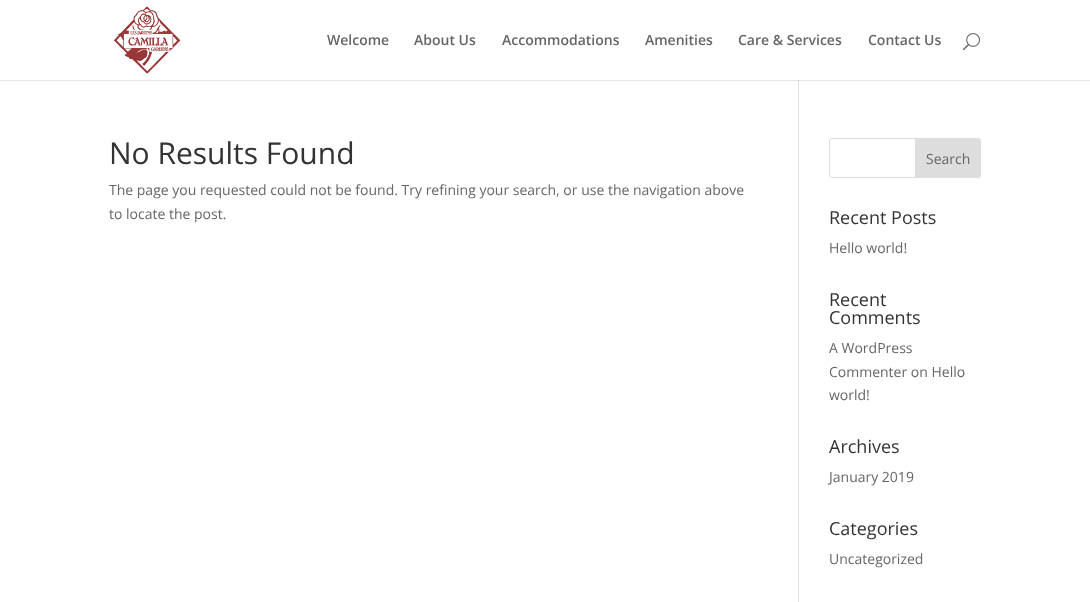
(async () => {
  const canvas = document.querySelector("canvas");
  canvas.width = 1090;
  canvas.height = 602;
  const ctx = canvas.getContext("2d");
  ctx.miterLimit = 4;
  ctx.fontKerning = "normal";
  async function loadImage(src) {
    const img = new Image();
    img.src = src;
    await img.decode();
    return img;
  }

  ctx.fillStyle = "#ffffff";
  ctx.fillRect(0, 0, 1090, 602);
  ctx.fillStyle = "#e6e6e6";
  ctx.fillRect(0, 80, 1090, 1);
  ctx.drawImage(await loadImage("img/1.png"), 113, 6, 68, 68);
  ctx.drawImage(await loadImage("img/2.png"), 963, 33, 17, 18);
  ctx.fillStyle = "#e2e2e2";
  ctx.fillRect(798, 80, 1, 522);
  ctx.fillStyle = "#cbcbcb";
  ctx.fillRect(798, 80, 1, 1);
  ctx.beginPath();
  ctx.roundRect(829.5, 138.5, 151, 39, 2.5);
  ctx.strokeStyle = "#dddddd";
  ctx.stroke();
  ctx.fillStyle = "#dddddd";
  ctx.beginPath();
  ctx.roundRect(915.5, 138.5, 65, 39, [0, 2.5, 2.5, 0]);
  ctx.fill();
  ctx.stroke();
  ctx.font = "600 14px Open Sans";
  ctx.fillStyle = "#666666";
  for (const [text, x, y] of [
    ["Welcome", 327, 45],
    ["About Us", 414, 45],
    ["Accommodations", 502, 45],
    ["Amenities", 645, 45],
    ["Care & Services", 738, 45],
    ["Contact Us", 868, 45],
  ]) {
    ctx.fillText(text, x, y);
  }
  ctx.font = "30px Open Sans";
  ctx.fillStyle = "#333333";
  ctx.fillText("No Results Found", 109, 164);
  ctx.font = "14px Open Sans";
  ctx.fillStyle = "#666666";
  for (const [text, x, y] of [
    ["The page you requested could not be found. Try refining your search, or use the navigation above", 109, 195],
    ["to locate the post.", 109, 219],
    ["Search", 926, 164],
  ]) {
    ctx.fillText(text, x, y);
  }
  ctx.font = "18px Open Sans";
  ctx.fillStyle = "#333333";
  ctx.fillText("Recent Posts", 829, 224);
  ctx.font = "14px Open Sans";
  ctx.fillStyle = "#666666";
  ctx.fillText("Hello world!", 829, 253);
  ctx.font = "18px Open Sans";
  ctx.fillStyle = "#333333";
  ctx.fillText("Recent", 829, 306);
  ctx.fillText("Comments", 829, 324);
  ctx.font = "14px Open Sans";
  ctx.fillStyle = "#666666";
  for (const [text, x, y] of [
    ["A WordPress", 829, 353],
    ["Commenter on Hello", 829, 377],
    ["world!", 829, 400],
  ]) {
    ctx.fillText(text, x, y);
  }
  ctx.font = "18px Open Sans";
  ctx.fillStyle = "#333333";
  ctx.fillText("Archives", 829, 453);
  ctx.font = "14px Open Sans";
  ctx.fillStyle = "#666666";
  ctx.fillText("January 2019", 829, 482);
  ctx.font = "18px Open Sans";
  ctx.fillStyle = "#333333";
  ctx.fillText("Categories", 829, 535);
  ctx.font = "14px Open Sans";
  ctx.fillStyle = "#666666";
  ctx.fillText("Uncategorized", 829, 564);
})();
